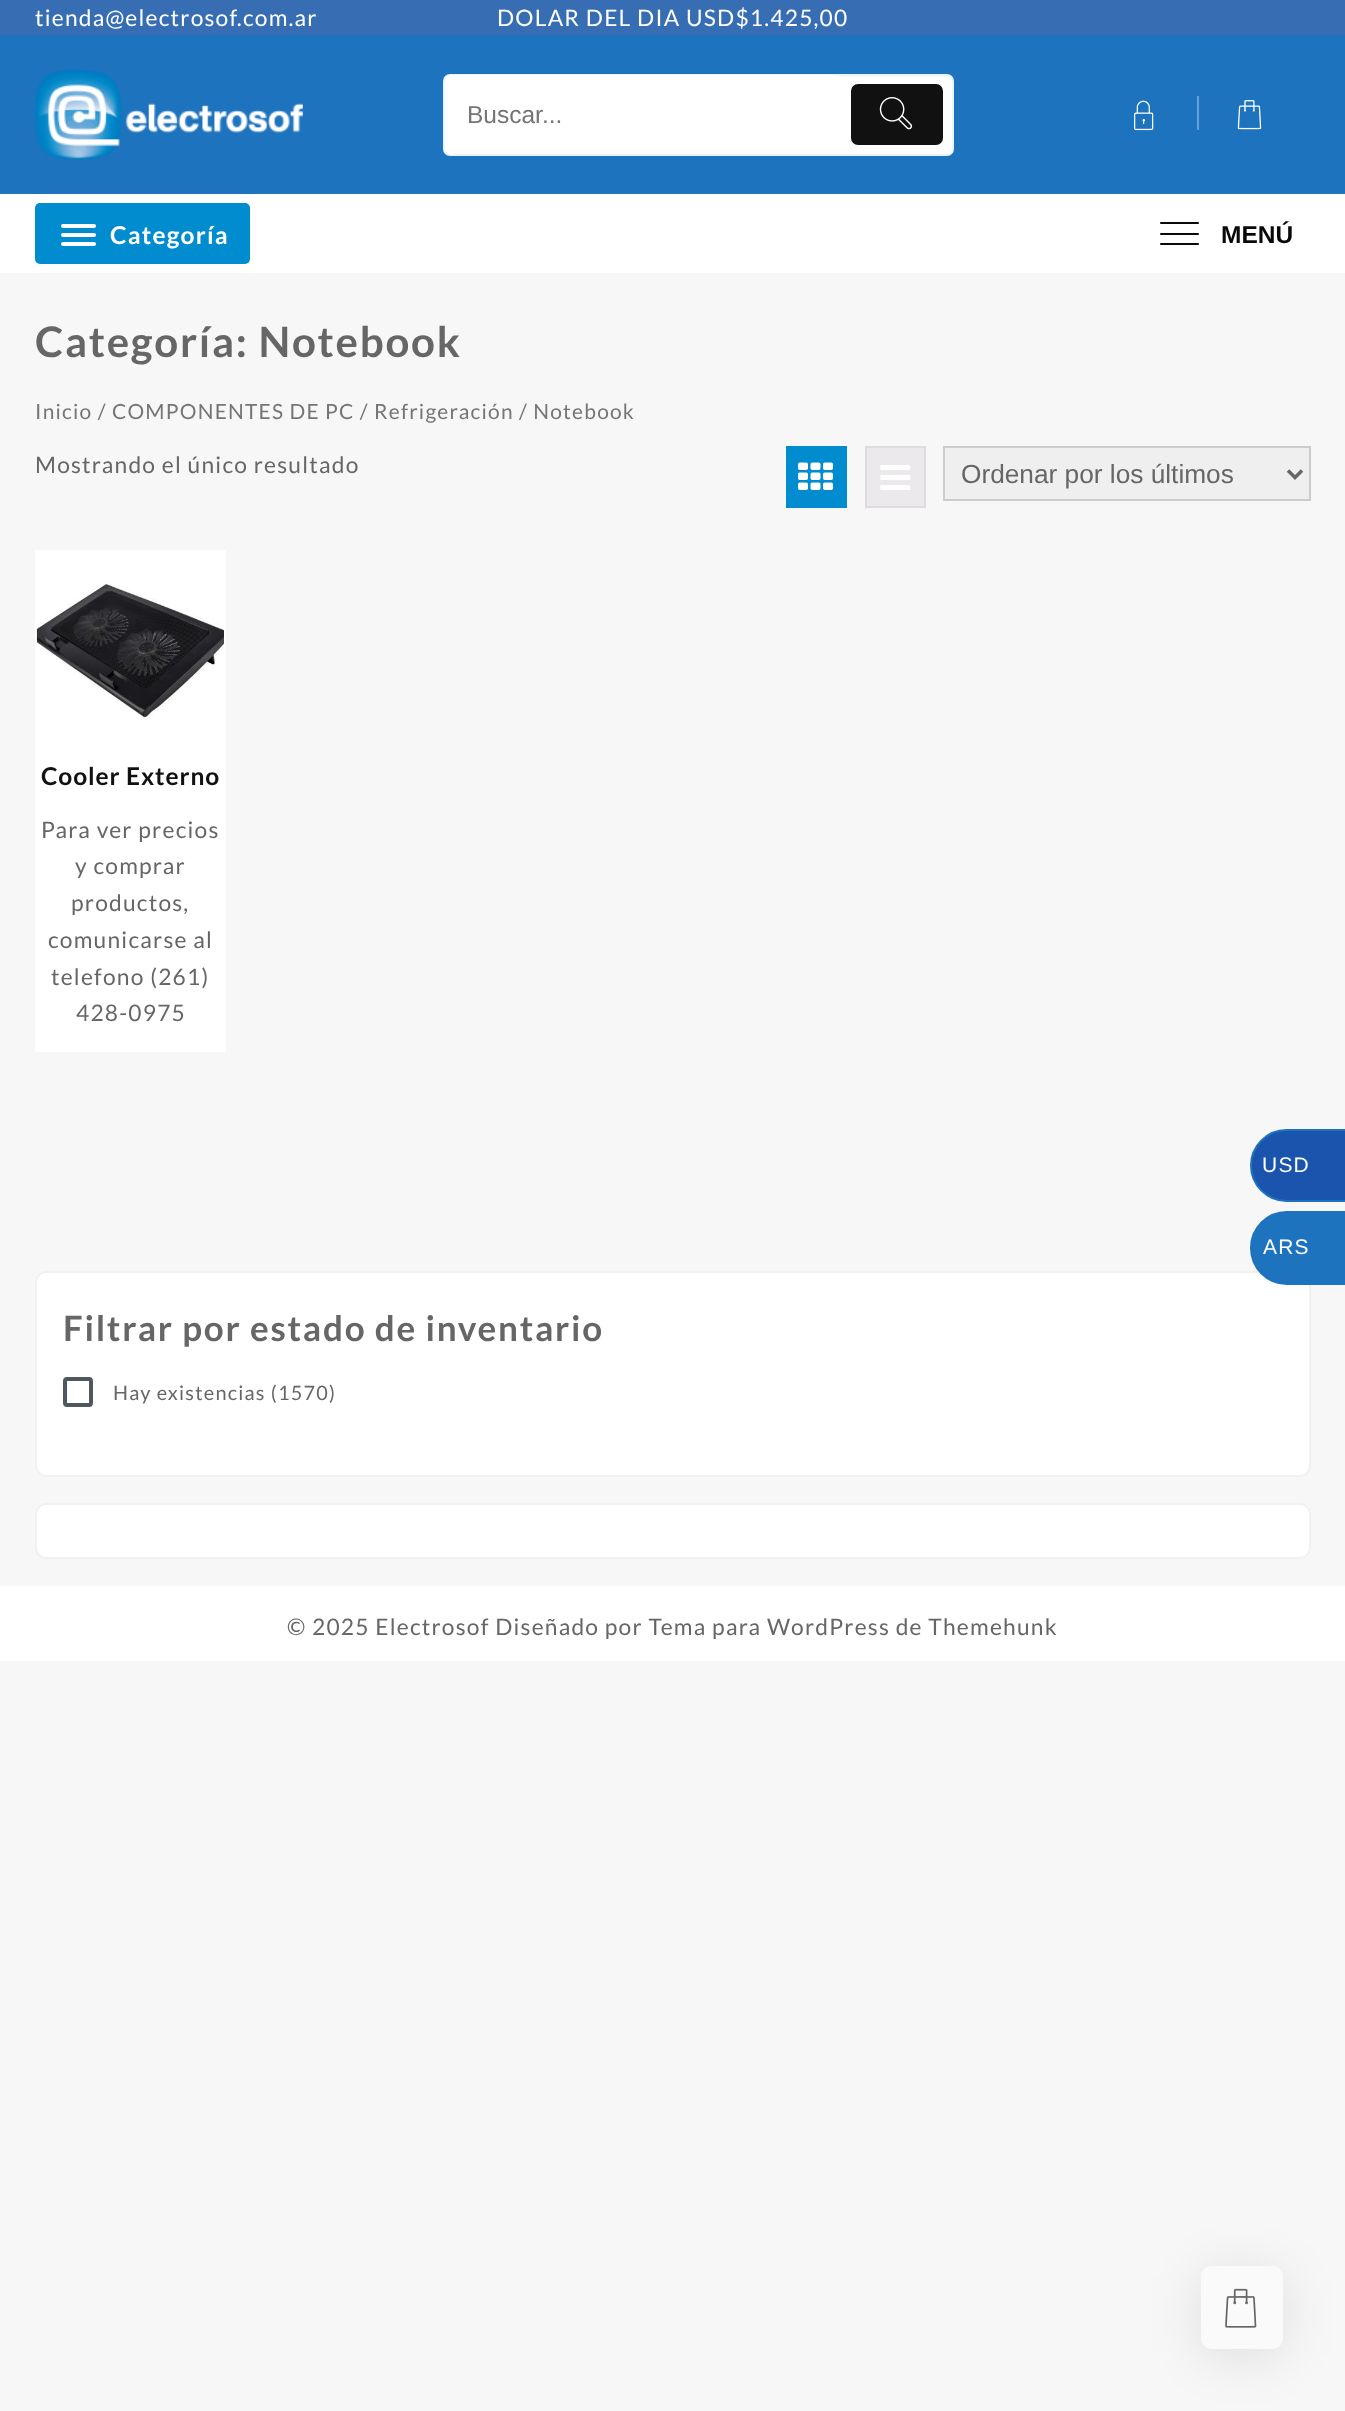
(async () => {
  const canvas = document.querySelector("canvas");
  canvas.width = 1345;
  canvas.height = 2411;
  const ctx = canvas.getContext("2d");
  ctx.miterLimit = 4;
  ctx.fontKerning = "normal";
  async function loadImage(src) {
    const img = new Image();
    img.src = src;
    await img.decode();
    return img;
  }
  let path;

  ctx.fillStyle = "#f7f7f7";
  ctx.fillRect(0, 0, 1345, 2411);
  ctx.fillStyle = "#376eb3";
  ctx.fillRect(0, 0, 1345, 35);
  ctx.fillStyle = "#1e73be";
  ctx.fillRect(0, 35, 1345, 159);
  ctx.drawImage(await loadImage("img/1.png"), 35, 70, 268, 90);
  ctx.fillStyle = "#ffffff";
  ctx.beginPath();
  ctx.roundRect(444, 75, 509, 80, 6);
  ctx.fill();
  ctx.strokeStyle = "#e7f5ff";
  ctx.lineWidth = 2;
  ctx.stroke();
  ctx.beginPath();
  ctx.roundRect(445, 75, 397, 79, 7);
  ctx.fill();
  ctx.fillStyle = "#111111";
  ctx.beginPath();
  ctx.roundRect(851, 84, 92, 61, 7);
  ctx.fill();
  ctx.drawImage(await loadImage("img/2.png"), 879, 97, 34, 33);
  ctx.drawImage(await loadImage("img/3.png"), 1134, 100, 20, 31);
  ctx.fillStyle = "#66a0d3";
  ctx.fillRect(1197, 96, 2, 34);
  ctx.drawImage(await loadImage("img/4.png"), 1237, 100, 25, 30);
  ctx.fillStyle = "#ffffff";
  ctx.fillRect(0, 194, 1345, 79);
  ctx.fillStyle = "#008ccf";
  ctx.beginPath();
  ctx.roundRect(35, 203, 215, 61, 5);
  ctx.fill();
  ctx.fillStyle = "#ffffff";
  ctx.beginPath();
  ctx.roundRect(61, 224, 35, 4, 2);
  ctx.fill();
  ctx.beginPath();
  ctx.roundRect(61, 233, 35, 4, 2);
  ctx.fill();
  ctx.beginPath();
  ctx.roundRect(61, 242, 35, 4, 2);
  ctx.fill();
  ctx.fillStyle = "#090909";
  ctx.beginPath();
  ctx.roundRect(1160, 222, 39, 2, 1);
  ctx.fill();
  ctx.beginPath();
  ctx.roundRect(1160, 233, 39, 2, 1);
  ctx.fill();
  ctx.beginPath();
  ctx.roundRect(1160, 243, 39, 2, 1);
  ctx.fill();
  ctx.fillStyle = "#008ccf";
  ctx.fillRect(786, 446, 61, 62);
  ctx.drawImage(await loadImage("img/5.png"), 798, 462, 35, 28);
  ctx.fillStyle = "#ebe9eb";
  ctx.beginPath();
  ctx.rect(866, 447, 59, 60);
  ctx.fill();
  ctx.strokeStyle = "#dddddd";
  ctx.stroke();
  ctx.drawImage(await loadImage("img/6.png"), 880, 465, 31, 25);
  ctx.fillStyle = "#efefef";
  ctx.beginPath();
  ctx.rect(944, 447, 366, 53);
  ctx.fill();
  ctx.strokeStyle = "#cccccc";
  ctx.stroke();
  path = new Path2D("M1288 470.5L1295 477.5L1302 470.5");
  ctx.strokeStyle = "#666666";
  ctx.lineWidth = 3.5;
  ctx.stroke(path);
  ctx.fillStyle = "#ffffff";
  ctx.fillRect(35, 550, 191, 502);
  ctx.drawImage(await loadImage("img/7.png"), 36, 583, 188, 137);
  ctx.beginPath();
  ctx.roundRect(36, 1272, 1274, 204, 10);
  ctx.fill();
  ctx.strokeStyle = "#f1f1f1";
  ctx.lineWidth = 2;
  ctx.stroke();
  ctx.beginPath();
  ctx.roundRect(65, 1379, 26, 26, 2);
  ctx.strokeStyle = "#50575e";
  ctx.lineWidth = 4;
  ctx.stroke();
  ctx.beginPath();
  ctx.roundRect(36, 1504, 1274, 54, 10);
  ctx.fill();
  ctx.strokeStyle = "#f1f1f1";
  ctx.lineWidth = 2;
  ctx.stroke();
  ctx.fillRect(0, 1586, 1345, 75);
  ctx.fillStyle = "#1a54ad";
  path = new Path2D("M1286.5 1130H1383V1201H1286.5C1267 1201 1251 1185 1251 1165.5C1251 1146 1267 1130 1286.5 1130Z");
  ctx.fill(path);
  ctx.strokeStyle = "#1e73be";
  ctx.stroke(path);
  ctx.fillStyle = "#1e73be";
  path = new Path2D("M1287 1212H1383V1284H1287C1267 1284 1251 1268 1251 1248C1251 1228 1267 1212 1287 1212Z");
  ctx.fill(path);
  ctx.stroke(path);
  ctx.save();
  path = new Path2D("M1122 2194H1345V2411H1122ZM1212 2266H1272C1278 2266 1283 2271 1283 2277V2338C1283 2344 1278 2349 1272 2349H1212C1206 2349 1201 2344 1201 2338V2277C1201 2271 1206 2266 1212 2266Z");
  ctx.clip(path, "evenodd");
  ctx.fillStyle = "rgba(0, 0, 0, 0.1)";
  ctx.filter = "blur(26px)";
  ctx.beginPath();
  ctx.roundRect(1201, 2273, 82, 83, 11);
  ctx.fill();
  ctx.filter = "none";
  ctx.restore();
  ctx.fillStyle = "rgba(255, 255, 255, 0.44)";
  ctx.beginPath();
  ctx.roundRect(1201, 2266, 82, 83, 11);
  ctx.fill();
  ctx.drawImage(await loadImage("img/8.png"), 1225, 2288, 32, 40);
  ctx.letterSpacing = "1.22px";
  ctx.font = "22.75px Lato";
  ctx.fillStyle = "#ffffff";
  ctx.fillText("tienda@electrosof.com.ar", 35, 26);
  ctx.fillText("DOLAR DEL DIA USD$1.425,00", 497, 26);
  ctx.letterSpacing = "0px";
  ctx.font = "24.5px Liberation Sans";
  ctx.fillStyle = "#757575";
  ctx.fillText("Buscar...", 467, 123);
  ctx.letterSpacing = "1.22px";
  ctx.font = "bold 24.5px Lato";
  ctx.fillStyle = "#ffffff";
  ctx.fillText("Categoría", 110, 244);
  ctx.letterSpacing = "0px";
  ctx.font = "bold 24.5px Liberation Sans";
  ctx.fillStyle = "#090909";
  ctx.fillText("MENÚ", 1221, 243);
  ctx.letterSpacing = "1.75px";
  ctx.font = "bold 42px Lato";
  ctx.fillStyle = "#666666";
  ctx.fillText("Categoría: Notebook", 35, 357);
  ctx.letterSpacing = "1.22px";
  ctx.font = "20.9px Lato";
  ctx.fillStyle = "#757575";
  ctx.fillText("Inicio / COMPONENTES DE PC / Refrigeración / Notebook", 35, 419);
  ctx.font = "22.75px Lato";
  ctx.fillStyle = "#666666";
  ctx.fillText("Mostrando el único resultado", 35, 473);
  ctx.letterSpacing = "0px";
  ctx.font = "26.25px Liberation Sans";
  ctx.fillText("Ordenar por los últimos", 961, 483);
  ctx.letterSpacing = "0.9px";
  ctx.font = "bold 24.5px Lato";
  ctx.fillStyle = "#111111";
  ctx.fillText("Cooler Externo", 41, 785);
  ctx.letterSpacing = "1.22px";
  ctx.font = "22.75px Lato";
  ctx.fillStyle = "#666666";
  for (const [text, x, y] of [
    ["Para ver precios", 41, 838],
    ["y comprar", 75, 874],
    ["productos,", 71, 911],
    ["comunicarse al", 48, 948],
    ["telefono (261)", 51, 985],
    ["428-0975", 76, 1021],
  ]) {
    ctx.fillText(text, x, y);
  }
  ctx.letterSpacing = "1.75px";
  ctx.font = "bold 35px Lato";
  ctx.fillText("Filtrar por estado de inventario", 63, 1341);
  ctx.letterSpacing = "1.22px";
  ctx.font = "19.9px Lato";
  ctx.fillText("Hay existencias (1570)", 113, 1400);
  ctx.font = "22.75px Lato";
  ctx.fillText("© 2025 Electrosof Diseñado por Tema para WordPress de Themehunk", 287, 1635);
  ctx.font = "21px Liberation Sans";
  ctx.fillStyle = "#ffffff";
  ctx.fillText("USD", 1262, 1172);
  ctx.fillText("ARS", 1263, 1254);
})();
